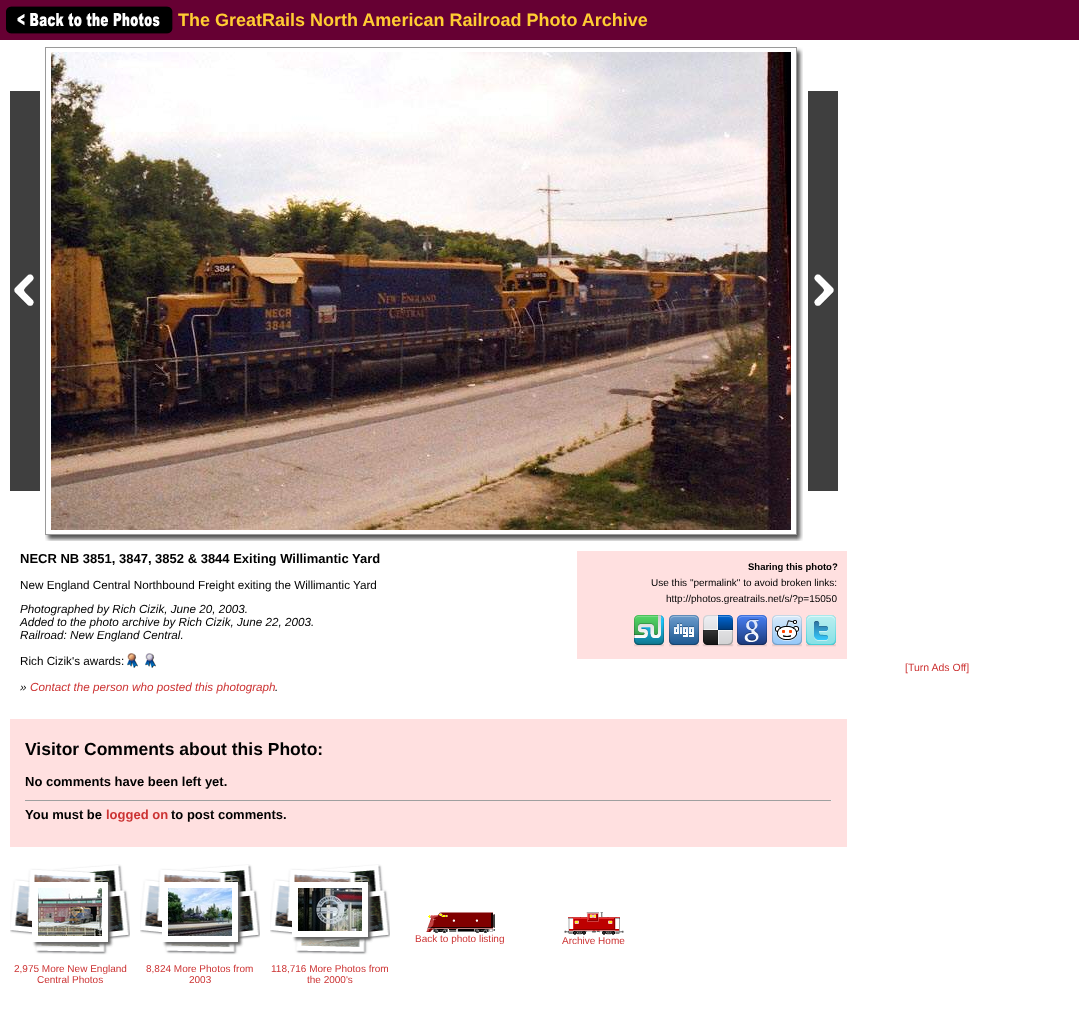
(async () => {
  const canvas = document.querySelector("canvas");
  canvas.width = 1079;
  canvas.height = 1033;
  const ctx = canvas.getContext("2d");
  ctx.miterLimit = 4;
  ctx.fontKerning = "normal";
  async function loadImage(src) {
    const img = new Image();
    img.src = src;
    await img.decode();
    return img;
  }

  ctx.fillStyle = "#ffffff";
  ctx.fillRect(0, 0, 1079, 1033);
  ctx.fillStyle = "#660033";
  ctx.fillRect(0, 0, 1079, 40);
  ctx.drawImage(await loadImage("img/1.png"), 6, 6, 167, 28);
  ctx.drawImage(await loadImage("img/2.png"), 10, 91, 30, 400);
  ctx.strokeStyle = "#9a9a9a";
  ctx.strokeRect(45.5, 47.5, 751, 487);
  ctx.drawImage(await loadImage("img/3.png"), 51, 52, 740, 478);
  ctx.drawImage(await loadImage("img/4.png"), 797, 47, 6, 488);
  ctx.drawImage(await loadImage("img/5.png"), 808, 91, 30, 400);
  ctx.drawImage(await loadImage("img/6.png"), 45, 535, 752, 6);
  ctx.drawImage(await loadImage("img/7.png"), 797, 535, 6, 6);
  ctx.drawImage(await loadImage("img/8.png"), 127, 653, 11, 15);
  ctx.drawImage(await loadImage("img/9.png"), 145, 653, 11, 15);
  ctx.fillStyle = "#ffe0e0";
  ctx.fillRect(577, 551, 270, 108);
  ctx.drawImage(await loadImage("img/10.png"), 634, 615, 30, 32);
  ctx.drawImage(await loadImage("img/11.png"), 669, 615, 30, 32);
  ctx.drawImage(await loadImage("img/12.png"), 702, 615, 32, 32);
  ctx.drawImage(await loadImage("img/13.png"), 737, 615, 30, 32);
  ctx.drawImage(await loadImage("img/14.png"), 772, 615, 30, 32);
  ctx.drawImage(await loadImage("img/15.png"), 806, 615, 30, 32);
  for (const [x, y, w, h, color] of [
    [10, 719, 837, 128, "#ffe0e0"],
    [25, 800, 807, 1, "#9f9f9f"],
    [831, 800, 1, 1, "#eeeeee"],
  ]) {
    ctx.fillStyle = color;
    ctx.fillRect(x, y, w, h);
  }
  ctx.drawImage(await loadImage("img/16.png"), 426, 912, 69, 21);
  ctx.drawImage(await loadImage("img/17.png"), 564, 912, 60, 23);
  ctx.drawImage(await loadImage("img/18.png"), 10, 864, 120, 91);
  ctx.fillStyle = "#666666";
  ctx.filter = "blur(1.5px)";
  ctx.beginPath();
  ctx.rect(35, 885, 76, 60);
  ctx.fill();
  ctx.filter = "none";
  ctx.fillStyle = "#ffffff";
  ctx.fillRect(32, 882, 76, 60);
  ctx.drawImage(await loadImage("img/19.png"), 38, 888, 64, 48);
  ctx.drawImage(await loadImage("img/18.png"), 140, 864, 120, 91);
  ctx.fillStyle = "#666666";
  ctx.filter = "blur(1.5px)";
  ctx.beginPath();
  ctx.rect(165, 885, 76, 60);
  ctx.fill();
  ctx.filter = "none";
  ctx.fillStyle = "#ffffff";
  ctx.fillRect(162, 882, 76, 60);
  ctx.drawImage(await loadImage("img/20.png"), 168, 888, 64, 48);
  ctx.drawImage(await loadImage("img/18.png"), 270, 864, 120, 91);
  ctx.fillStyle = "#666666";
  ctx.filter = "blur(1.5px)";
  ctx.beginPath();
  ctx.rect(295, 885, 76, 55);
  ctx.fill();
  ctx.filter = "none";
  ctx.fillStyle = "#ffffff";
  ctx.fillRect(292, 882, 76, 55);
  ctx.drawImage(await loadImage("img/21.png"), 298, 888, 64, 43);
  ctx.font = "bold 18px Liberation Sans";
  ctx.fillStyle = "#ffcc33";
  ctx.fillText("The GreatRails North American Railroad Photo Archive", 178, 26);
  ctx.font = "bold 13px Liberation Sans";
  ctx.fillStyle = "#000000";
  ctx.fillText("NECR NB 3851, 3847, 3852 & 3844 Exiting Willimantic Yard", 20, 563);
  ctx.font = "11.7px Liberation Sans";
  ctx.fillText("New England Central Northbound Freight exiting the Willimantic Yard", 20, 589);
  ctx.font = "italic 11.7px Liberation Sans";
  for (const [text, x, y] of [
    ["Photographed by Rich Cizik, June 20, 2003.", 20, 613],
    ["Added to the photo archive by Rich Cizik, June 22, 2003.", 20, 626],
    ["Railroad: New England Central.", 20, 639],
  ]) {
    ctx.fillText(text, x, y);
  }
  ctx.font = "11.7px Liberation Sans";
  ctx.fillText("Rich Cizik's awards:", 20, 665);
  ctx.font = "italic 11.7px Liberation Sans";
  ctx.fillText("»", 20, 691);
  ctx.fillStyle = "#cc3333";
  ctx.fillText("Contact the person who posted this photograph", 30, 691);
  ctx.fillStyle = "#000000";
  ctx.fillText(".", 275, 691);
  ctx.font = "bold 9.5px Liberation Sans";
  ctx.fillText("Sharing this photo?", 748, 570);
  ctx.font = "10px Liberation Sans";
  ctx.fillText("Use this \"permalink\" to avoid broken links:", 651, 586);
  ctx.fillText("http://photos.greatrails.net/s/?p=15050", 666, 602);
  ctx.font = "10.5px Liberation Sans";
  ctx.fillStyle = "#cc3333";
  ctx.fillText("[Turn Ads Off]", 905, 671);
  ctx.font = "bold 17.5px Liberation Sans";
  ctx.fillStyle = "#000000";
  ctx.fillText("Visitor Comments about this Photo:", 25, 755);
  ctx.font = "bold 13px Liberation Sans";
  ctx.fillText("No comments have been left yet.", 25, 786);
  ctx.fillText("You must be", 25, 819);
  ctx.fillStyle = "#cc3333";
  ctx.fillText("logged on", 106, 819);
  ctx.fillStyle = "#000000";
  ctx.fillText("to post comments.", 171, 819);
  ctx.font = "10px Liberation Sans";
  ctx.fillStyle = "#cc3333";
  for (const [text, x, y] of [
    ["Back to photo listing", 415, 942],
    ["Archive Home", 562, 944],
    ["2,975 More New England", 14, 972],
    ["Central Photos", 37, 983],
    ["8,824 More Photos from", 146, 972],
    ["2003", 189, 983],
    ["118,716 More Photos from", 271, 972],
    ["the 2000's", 307, 983],
  ]) {
    ctx.fillText(text, x, y);
  }
})();
